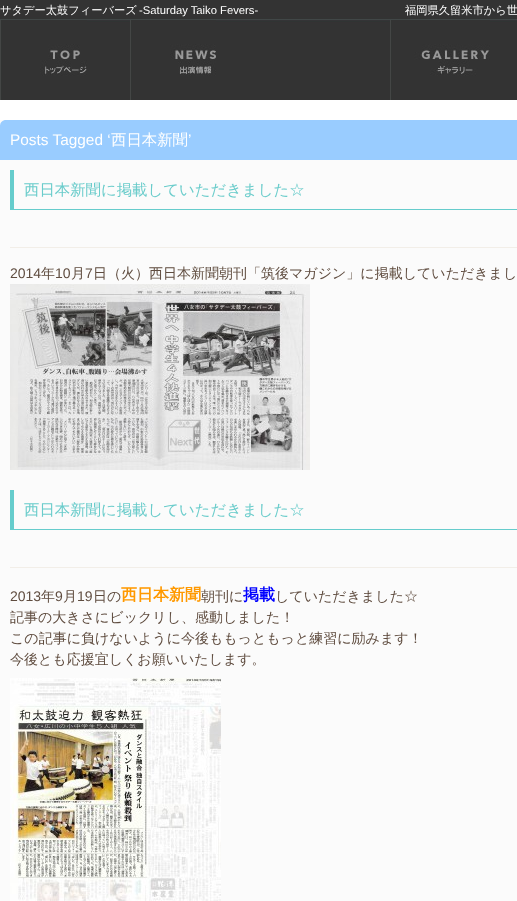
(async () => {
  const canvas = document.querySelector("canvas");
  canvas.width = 517;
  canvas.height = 901;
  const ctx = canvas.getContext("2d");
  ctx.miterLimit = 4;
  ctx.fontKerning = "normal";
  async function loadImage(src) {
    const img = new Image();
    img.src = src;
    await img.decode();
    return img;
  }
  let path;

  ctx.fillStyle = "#ffffff";
  ctx.fillRect(0, 0, 517, 901);
  ctx.drawImage(await loadImage("img/1.png"), 0, 0, 517, 100);
  ctx.drawImage(await loadImage("img/2.png"), 0, 20, 87, 80);
  ctx.drawImage(await loadImage("img/3.png"), 130, 20, 86, 80);
  ctx.drawImage(await loadImage("img/4.png"), 390, 20, 100, 80);
  ctx.fillStyle = "#fbfbfb";
  ctx.fillRect(0, 120, 517, 781);
  ctx.fillStyle = "#99ccff";
  path = new Path2D("M6 120H517C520.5 120 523 122.5 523 126V160H0V126C0 122.5 2.5 120 6 120Z");
  ctx.fill(path);
  for (const [x, y, w, h, color] of [
    [10, 209, 507, 1, "#66cccc"],
    [10, 170, 4, 40, "#66cccc"],
    [10, 247, 507, 1, "#f2eee8"],
  ]) {
    ctx.fillStyle = color;
    ctx.fillRect(x, y, w, h);
  }
  ctx.drawImage(await loadImage("img/5.png"), 10, 284, 300, 186);
  for (const [x, y, w, h, color] of [
    [10, 529, 507, 1, "#66cccc"],
    [10, 490, 4, 40, "#66cccc"],
    [10, 567, 507, 1, "#f2eee8"],
  ]) {
    ctx.fillStyle = color;
    ctx.fillRect(x, y, w, h);
  }
  ctx.drawImage(await loadImage("img/6.png"), 10, 678, 211, 223);
  ctx.font = "500 11.25px WenQuanYi Zen Hei";
  ctx.fillStyle = "#ffffff";
  ctx.fillText("サタデー太鼓フィーバーズ", 0, 14);
  ctx.font = "11.25px Liberation Sans";
  ctx.fillText("-Saturday Taiko Fevers-", 139, 14);
  ctx.font = "500 11.25px WenQuanYi Zen Hei";
  ctx.fillText("福岡県久留米市から世", 405, 14);
  ctx.font = "15.4px Liberation Sans";
  ctx.fillText("Posts Tagged ‘", 10, 145);
  ctx.font = "500 15.4px WenQuanYi Zen Hei";
  ctx.fillText("西日本新聞", 111, 145);
  ctx.font = "15.4px Liberation Sans";
  ctx.fillText("’", 188, 145);
  ctx.font = "500 15.4px WenQuanYi Zen Hei";
  ctx.fillStyle = "#6acccb";
  ctx.fillText("西日本新聞に掲載していただきました☆", 24, 195);
  ctx.font = "14px Liberation Sans";
  ctx.fillStyle = "#5f4c3f";
  ctx.fillText("2014", 10, 278);
  ctx.font = "500 14px WenQuanYi Zen Hei";
  ctx.fillText("年", 41, 278);
  ctx.font = "14px Liberation Sans";
  ctx.fillText("10", 55, 278);
  ctx.font = "500 14px WenQuanYi Zen Hei";
  ctx.fillText("月", 71, 278);
  ctx.font = "14px Liberation Sans";
  ctx.fillText("7", 85, 278);
  ctx.font = "500 14px WenQuanYi Zen Hei";
  ctx.fillText("日（火）西日本新聞朝刊「筑後マガジン」に掲載していただきまし", 93, 278);
  ctx.font = "500 15.4px WenQuanYi Zen Hei";
  ctx.fillStyle = "#6acccb";
  ctx.fillText("西日本新聞に掲載していただきました☆", 24, 515);
  ctx.font = "14px Liberation Sans";
  ctx.fillStyle = "#5f4c3f";
  ctx.fillText("2013", 10, 601);
  ctx.font = "500 14px WenQuanYi Zen Hei";
  ctx.fillText("年", 41, 601);
  ctx.font = "14px Liberation Sans";
  ctx.fillText("9", 55, 601);
  ctx.font = "500 14px WenQuanYi Zen Hei";
  ctx.fillText("月", 63, 601);
  ctx.font = "14px Liberation Sans";
  ctx.fillText("19", 77, 601);
  ctx.font = "500 14px WenQuanYi Zen Hei";
  ctx.fillText("日の", 93, 601);
  ctx.font = "bold 16px WenQuanYi Zen Hei";
  ctx.fillStyle = "#ff9900";
  ctx.fillText("西日本新聞", 121, 600);
  ctx.font = "500 14px WenQuanYi Zen Hei";
  ctx.fillStyle = "#5f4c3f";
  ctx.fillText("朝刊に", 201, 601);
  ctx.font = "bold 16px WenQuanYi Zen Hei";
  ctx.fillStyle = "#0000ff";
  ctx.fillText("掲載", 243, 600);
  ctx.font = "500 14px WenQuanYi Zen Hei";
  ctx.fillStyle = "#5f4c3f";
  for (const [text, x, y] of [
    ["していただきました☆", 275, 601],
    ["記事の大きさにビックリし、感動しました！", 10, 622],
    ["この記事に負けないように今後ももっともっと練習に励みます！", 10, 643],
    ["今後とも応援宜しくお願いいたします。", 10, 664],
  ]) {
    ctx.fillText(text, x, y);
  }
})();
